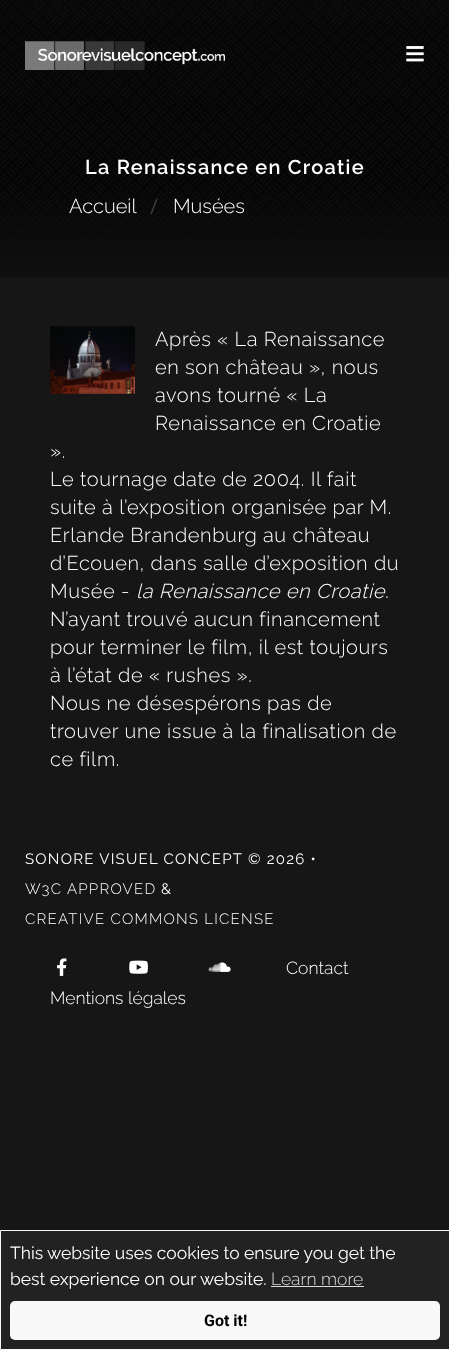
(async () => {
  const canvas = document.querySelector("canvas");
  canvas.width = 449;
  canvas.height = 1350;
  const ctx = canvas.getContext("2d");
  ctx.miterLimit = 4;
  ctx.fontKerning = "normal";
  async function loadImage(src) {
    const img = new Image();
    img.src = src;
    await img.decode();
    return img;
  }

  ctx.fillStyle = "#161616";
  ctx.fillRect(0, 0, 449, 1350);
  ctx.drawImage(await loadImage("img/3.png"), 0, 0, 449, 277);
  ctx.drawImage(await loadImage("img/1.png"), 25, 41, 200, 29);
  ctx.drawImage(await loadImage("img/2.png"), 406, 46, 18, 16);
  ctx.drawImage(await loadImage("img/4.png"), 50, 326, 85, 68);
  ctx.drawImage(await loadImage("img/5.png"), 57, 958, 10, 18);
  ctx.drawImage(await loadImage("img/6.png"), 129, 960, 19, 14);
  ctx.drawImage(await loadImage("img/7.png"), 208, 962, 23, 10);
  ctx.fillStyle = "#222222";
  ctx.beginPath();
  ctx.rect(0.5, 1230.5, 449, 119);
  ctx.fill();
  ctx.strokeStyle = "#f9f9f9";
  ctx.stroke();
  ctx.fillStyle = "#dedede";
  ctx.fillRect(271, 1286, 93, 1);
  ctx.fillStyle = "#f9f9f9";
  ctx.beginPath();
  ctx.roundRect(10, 1301, 430, 39, 5);
  ctx.fill();
  ctx.letterSpacing = "1.25px";
  ctx.font = "600 20px Raleway";
  ctx.fillStyle = "#ffffff";
  ctx.fillText("La Renaissance en Croatie", 85, 174);
  ctx.letterSpacing = "0px";
  ctx.font = "300 20px Raleway";
  ctx.fillText("Accueil", 69, 213);
  ctx.font = "20px Roboto";
  ctx.fillStyle = "#3b3f43";
  ctx.fillText("/", 150, 213);
  ctx.font = "300 20px Raleway";
  ctx.fillStyle = "#ffffff";
  ctx.fillText("Musées", 173, 213);
  ctx.letterSpacing = "0.6px";
  for (const [text, x, y] of [
    ["Après « La Renaissance", 155, 346],
    ["en son château », nous", 155, 374],
    ["avons tourné « La", 155, 402],
    ["Renaissance en Croatie", 155, 430],
    ["».", 50, 458],
    ["Le tournage date de 2004. Il fait", 50, 486],
    ["suite à l’exposition organisée par M.", 50, 514],
    ["Erlande Brandenburg au château", 50, 542],
    ["d’Ecouen, dans salle d’exposition du", 50, 570],
    ["Musée -", 50, 598],
  ]) {
    ctx.fillText(text, x, y);
  }
  ctx.font = "italic 300 20px Raleway";
  ctx.fillText("la Renaissance en Croatie.", 136, 598);
  ctx.font = "300 20px Raleway";
  for (const [text, x, y] of [
    ["N’ayant trouvé aucun financement", 50, 626],
    ["pour terminer le film, il est toujours", 50, 654],
    ["à l’état de « rushes ».", 50, 682],
    ["Nous ne désespérons pas de", 50, 710],
    ["trouver une issue à la finalisation de", 50, 738],
    ["ce film.", 50, 766],
  ]) {
    ctx.fillText(text, x, y);
  }
  ctx.letterSpacing = "1.25px";
  ctx.font = "15px Raleway";
  ctx.fillText("SONORE VISUEL CONCEPT © 2026 •", 25, 864);
  ctx.font = "300 15px Raleway";
  ctx.fillText("W3C APPROVED", 25, 894);
  ctx.font = "15px Raleway";
  ctx.fillText("&", 161, 894);
  ctx.font = "300 15px Raleway";
  ctx.fillText("CREATIVE COMMONS LICENSE", 25, 924);
  ctx.letterSpacing = "0px";
  ctx.font = "300 17.5px Raleway";
  ctx.fillText("Contact", 286, 974);
  ctx.fillText("Mentions légales", 50, 1004);
  ctx.font = "17.5px Raleway";
  ctx.fillText("This website uses cookies to ensure you get the", 10, 1259);
  ctx.fillText("best experience on our website.", 10, 1285);
  ctx.font = "300 17.5px Raleway";
  ctx.fillStyle = "#dedede";
  ctx.fillText("Learn more", 271, 1285);
  ctx.font = "bold 16px Roboto";
  ctx.fillStyle = "#000000";
  ctx.fillText("Got it!", 204, 1326);
})();
